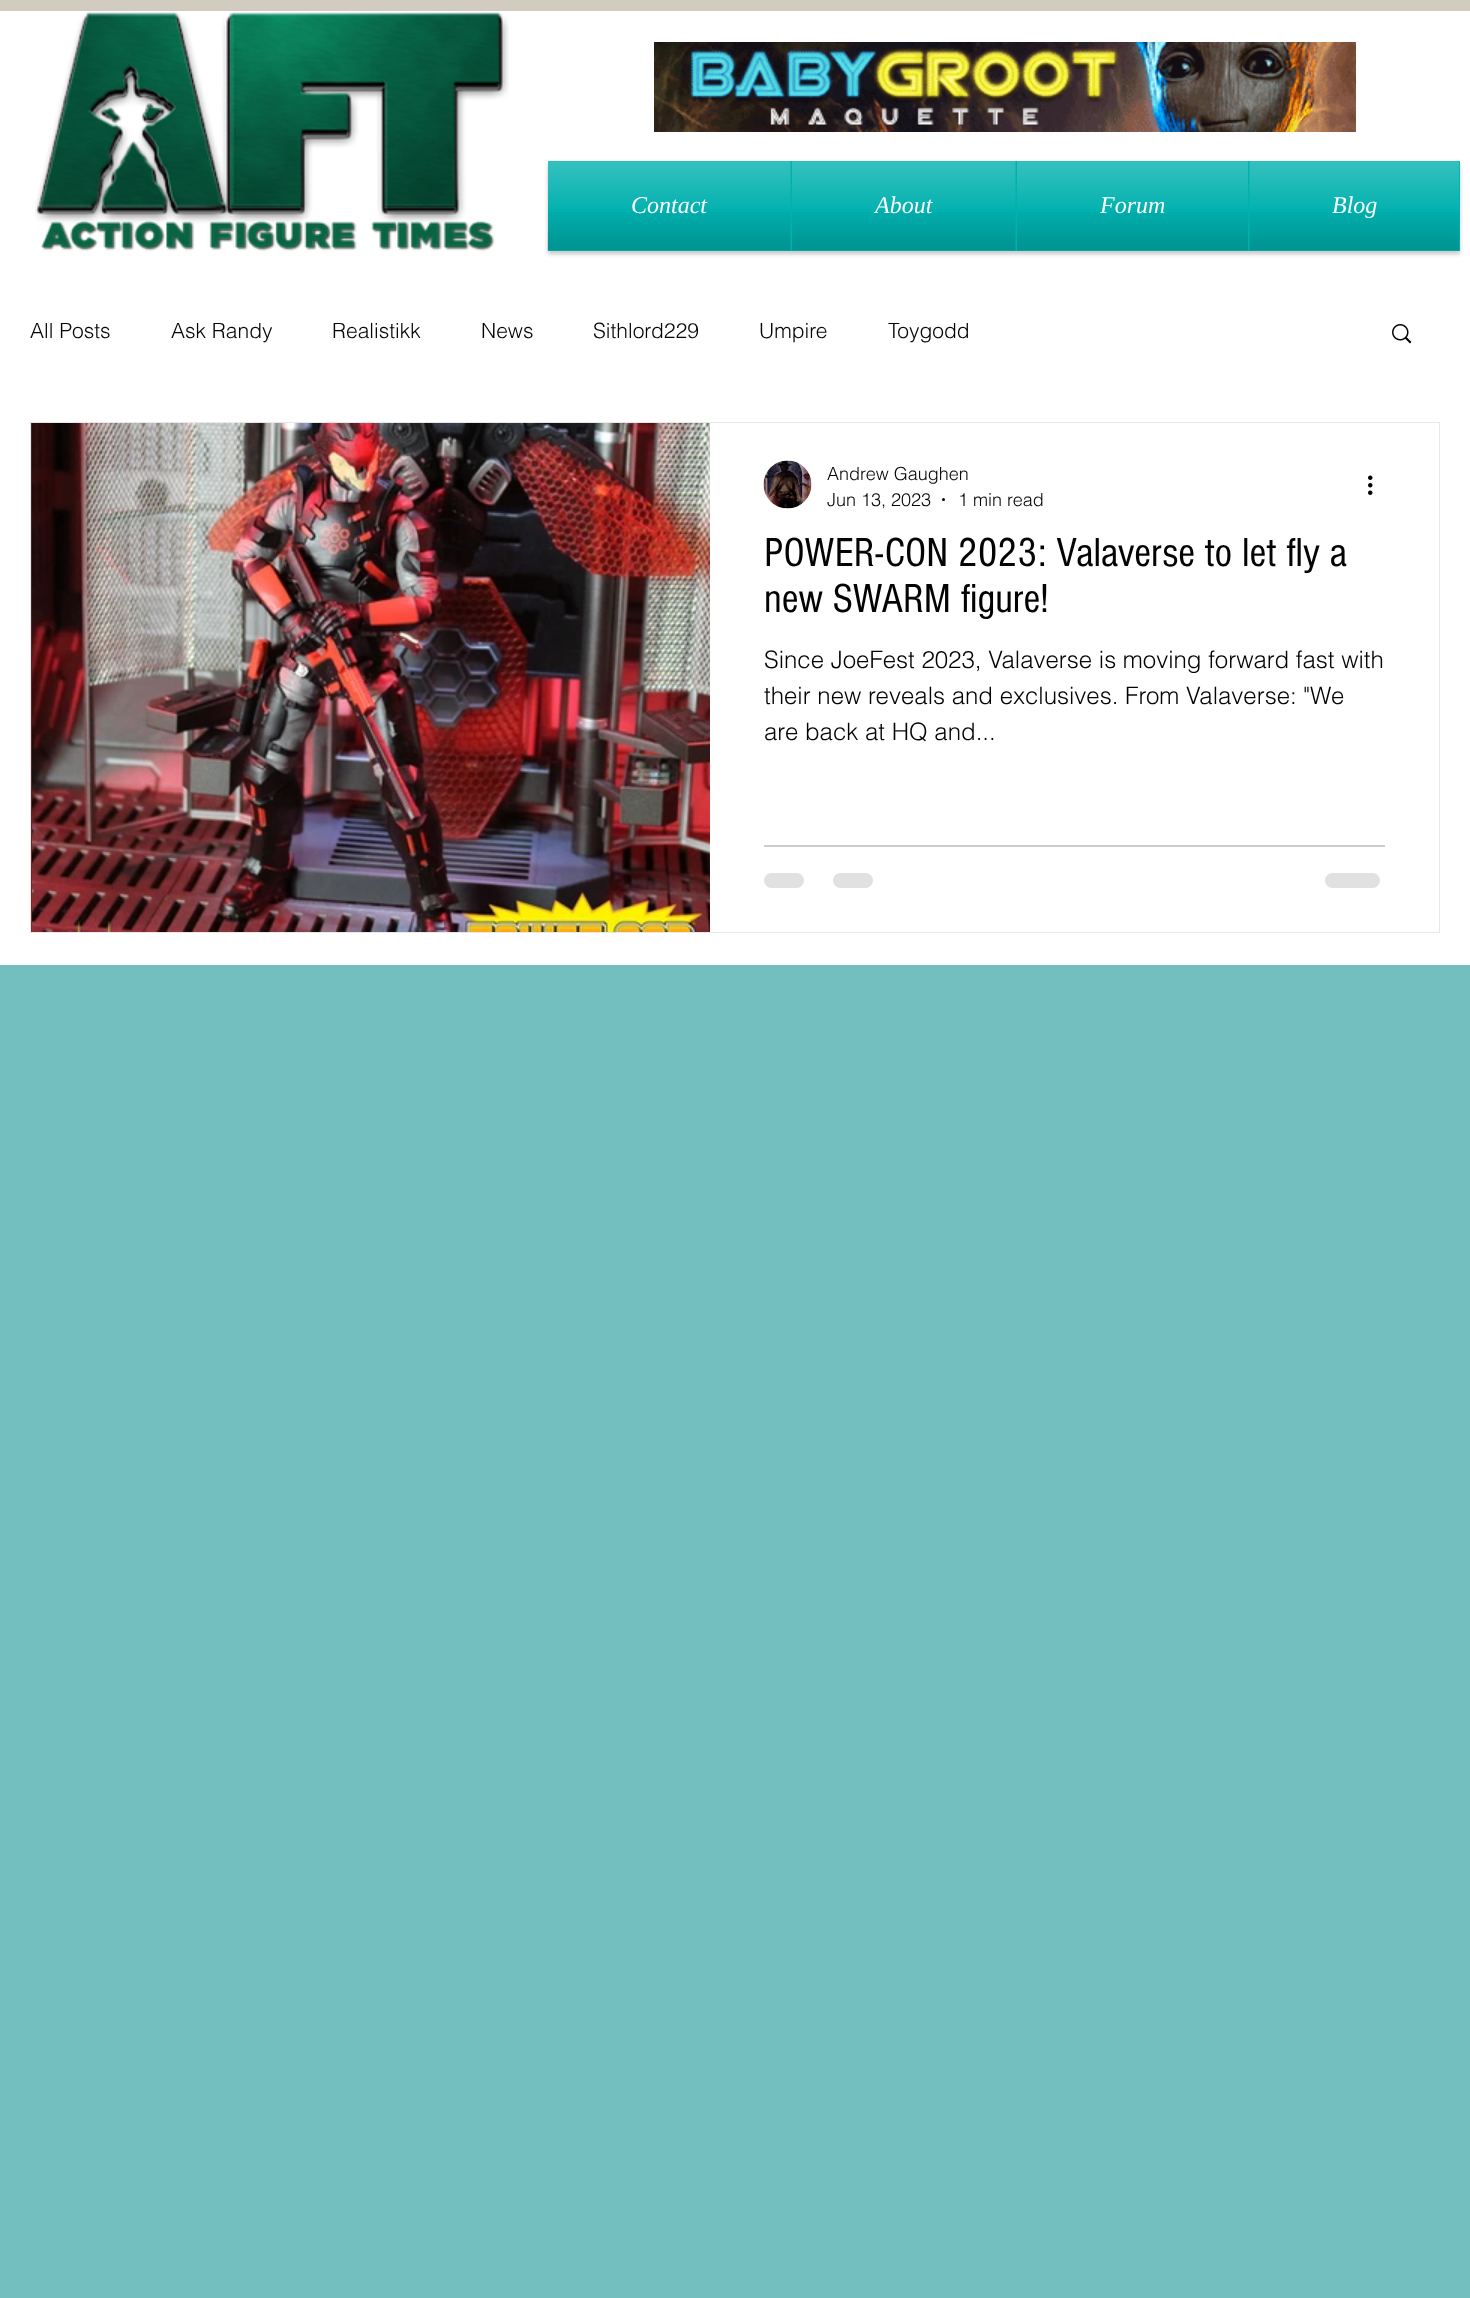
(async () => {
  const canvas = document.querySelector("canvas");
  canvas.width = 1470;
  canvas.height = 2298;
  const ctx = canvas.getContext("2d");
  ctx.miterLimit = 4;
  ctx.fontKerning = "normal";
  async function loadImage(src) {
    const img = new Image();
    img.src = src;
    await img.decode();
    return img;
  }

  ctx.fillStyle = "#73bfbf";
  ctx.fillRect(0, 0, 1470, 2298);
  ctx.fillStyle = "#ffffff";
  ctx.fillRect(0, 11, 1470, 954);
  ctx.fillStyle = "#d1cbc0";
  ctx.fillRect(0, 0, 1470, 11);
  ctx.drawImage(await loadImage("img/1.png"), 35, 11, 474, 240);
  ctx.drawImage(await loadImage("img/2.png"), 654, 42, 702, 90);
  ctx.fillStyle = "rgba(162, 158, 158, 0.6)";
  ctx.filter = "blur(2px)";
  ctx.beginPath();
  ctx.rect(548, 164, 912, 90);
  ctx.fill();
  ctx.filter = "none";
  ctx.drawImage(await loadImage("img/3.png"), 547, 231, 1, 19);
  ctx.fillStyle = "#01b1af";
  ctx.fillRect(548, 161, 912, 90);
  ctx.drawImage(await loadImage("img/12.png"), 1392, 324, 20, 20);
  ctx.strokeStyle = "#e9e7e7";
  ctx.lineWidth = 2;
  ctx.strokeRect(31, 423, 1408, 509);
  ctx.drawImage(await loadImage("img/13.png"), 31, 423, 1, 509);
  ctx.drawImage(await loadImage("img/14.png"), 32, 423, 678, 509);
  ctx.fillStyle = "#ffffff";
  ctx.fillRect(710, 423, 729, 509);
  ctx.drawImage(await loadImage("img/15.png"), 763, 460, 49, 49);
  ctx.fillStyle = "#030303";
  ctx.beginPath();
  ctx.arc(943.5, 499.5, 1.5, 0, Math.PI * 2);
  ctx.fill();
  ctx.drawImage(await loadImage("img/16.png"), 1368, 475, 5, 20);
  ctx.fillStyle = "#cdcdcd";
  ctx.fillRect(764, 845, 621, 2);
  ctx.fillStyle = "#e1e1e1";
  ctx.beginPath();
  ctx.roundRect(764, 873, 40, 15, 7.5);
  ctx.fill();
  ctx.beginPath();
  ctx.roundRect(833, 873, 40, 15, 7.5);
  ctx.fill();
  ctx.beginPath();
  ctx.roundRect(1325, 873, 55, 15, 7.5);
  ctx.fill();
  ctx.font = "italic 24px Liberation Serif";
  ctx.fillStyle = "#ffffff";
  ctx.fillText("Contact", 631, 213);
  ctx.drawImage(await loadImage("img/5.png"), 547, 212, 244, 39);
  ctx.drawImage(await loadImage("img/4.png"), 548, 161, 243, 48);
  ctx.fillText("About", 875, 213);
  ctx.drawImage(await loadImage("img/7.png"), 792, 212, 224, 39);
  ctx.drawImage(await loadImage("img/6.png"), 792, 161, 224, 48);
  ctx.fillText("Forum", 1100, 213);
  ctx.drawImage(await loadImage("img/9.png"), 1017, 212, 231, 39);
  ctx.drawImage(await loadImage("img/8.png"), 1017, 161, 231, 48);
  ctx.fillText("Blog", 1332, 213);
  ctx.drawImage(await loadImage("img/11.png"), 1249, 212, 211, 39);
  ctx.drawImage(await loadImage("img/10.png"), 1249, 161, 211, 48);
  ctx.font = "300 21px helvetica";
  ctx.fillStyle = "#030303";
  for (const [text, x, y] of [
    ["All Posts", 30, 338],
    ["Ask Randy", 171, 338],
    ["Realistikk", 332, 338],
    ["News", 481, 338],
    ["Sithlord229", 593, 338],
    ["Umpire", 759, 338],
    ["Toygodd", 888, 338],
  ]) {
    ctx.fillText(text, x, y);
  }
  ctx.font = "300 18px helvetica";
  for (const [text, x, y] of [
    ["Andrew Gaughen", 827, 480],
    ["Jun 13, 2023", 827, 506],
    ["1 min read", 958, 506],
  ]) {
    ctx.fillText(text, x, y);
  }
  ctx.font = "42px 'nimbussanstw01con'";
  ctx.fillText("POWER-CON 2023: Valaverse to let fly a", 764, 566);
  ctx.fillText("new SWARM figure!", 764, 612);
  ctx.font = "300 24px helvetica";
  for (const [text, x, y] of [
    ["Since JoeFest 2023, Valaverse is moving forward fast with", 764, 668],
    ["their new reveals and exclusives. From Valaverse: \"We", 764, 704],
    ["are back at HQ and...", 764, 740],
  ]) {
    ctx.fillText(text, x, y);
  }
})();
